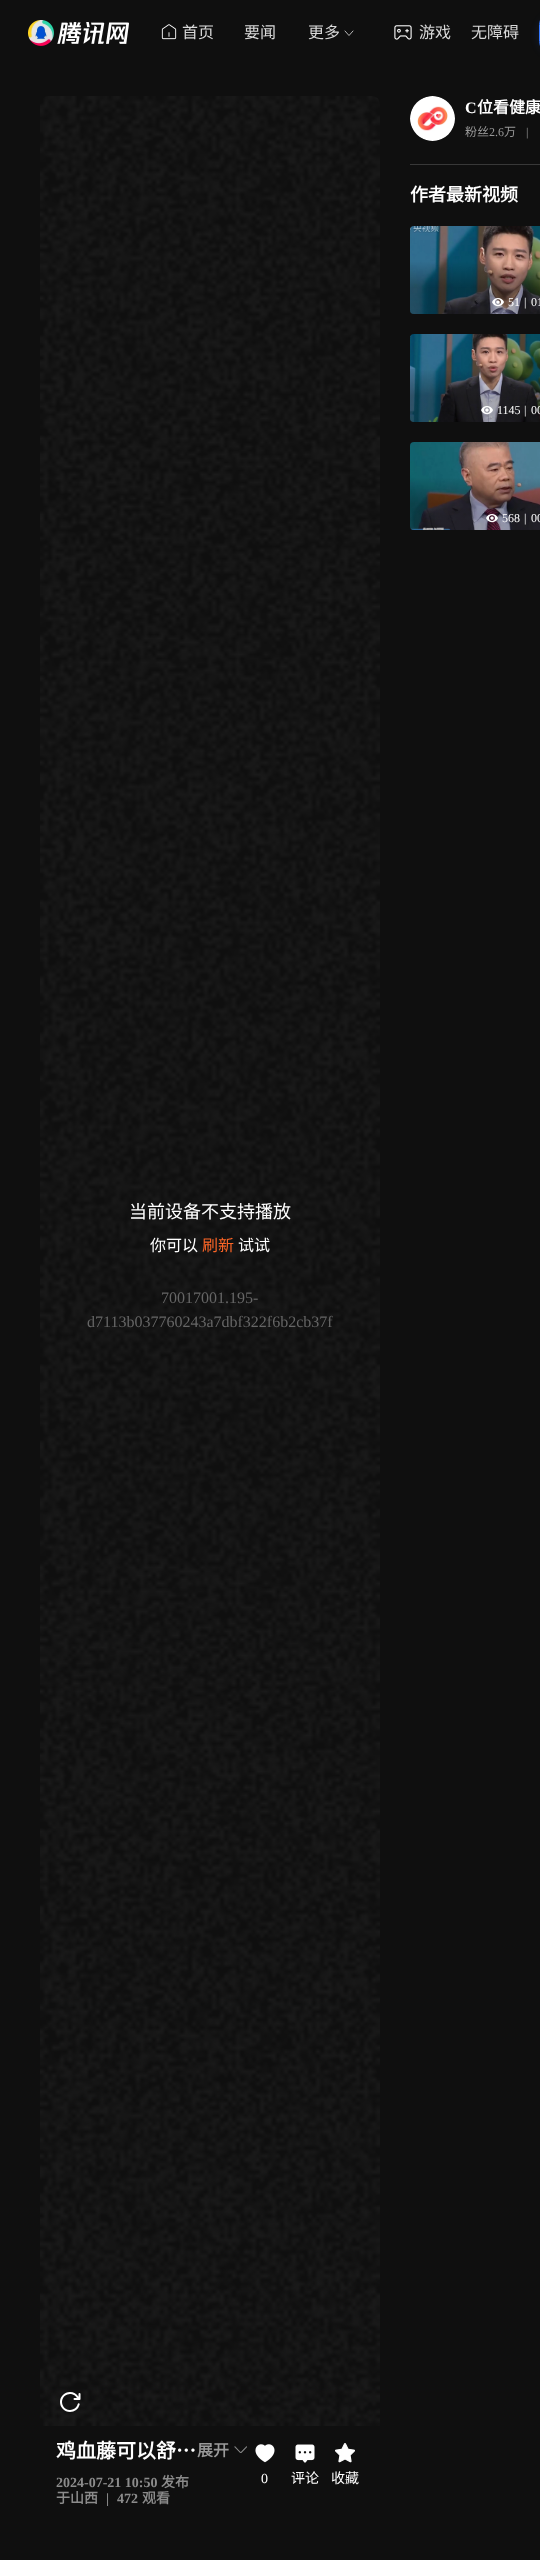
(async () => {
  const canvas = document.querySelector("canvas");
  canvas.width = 540;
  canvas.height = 2560;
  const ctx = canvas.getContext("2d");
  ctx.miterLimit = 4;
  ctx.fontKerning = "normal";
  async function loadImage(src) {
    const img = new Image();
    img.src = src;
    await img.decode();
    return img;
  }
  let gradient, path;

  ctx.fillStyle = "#0f0f0f";
  ctx.fillRect(0, 0, 540, 2560);
  ctx.drawImage(await loadImage("img/1.png"), 28, 20, 101, 26);
  ctx.drawImage(await loadImage("img/2.png"), 161, 24, 16, 16);
  path = new Path2D("M353 31L349 35.5L345 31");
  ctx.strokeStyle = "#ffffff";
  ctx.lineWidth = 0.7;
  ctx.lineCap = "round";
  ctx.lineJoin = "round";
  ctx.stroke(path);
  ctx.drawImage(await loadImage("img/3.png"), 394, 25, 18, 15);
  ctx.fillStyle = "rgba(51, 119, 255, 0.16)";
  ctx.filter = "blur(5px)";
  ctx.beginPath();
  ctx.roundRect(539, 16, 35, 38, 19);
  ctx.fill();
  ctx.filter = "none";
  ctx.beginPath();
  ctx.roundRect(539.5, 14.5, 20, 37, 18.5);
  ctx.strokeStyle = "#3377ff";
  ctx.lineWidth = 1;
  ctx.lineJoin = "miter";
  ctx.stroke();
  ctx.drawImage(await loadImage("img/4.png"), 410, 96, 45, 45);
  ctx.fillStyle = "#383838";
  ctx.fillRect(410, 164, 130, 1);
  ctx.drawImage(await loadImage("img/5.png"), 410, 226, 130, 88);
  gradient = ctx.createLinearGradient(487, 314, 487, 226);
  gradient.addColorStop(0.3, "rgba(0, 0, 0, 0.3)");
  gradient.addColorStop(0.6, "rgba(0, 0, 0, 0)");
  ctx.fillStyle = gradient;
  ctx.beginPath();
  ctx.roundRect(410, 226, 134, 88, 4);
  ctx.fill();
  ctx.drawImage(await loadImage("img/6.png"), 492, 298, 12, 9);
  ctx.drawImage(await loadImage("img/7.png"), 410, 334, 130, 88);
  gradient = ctx.createLinearGradient(487, 422, 487, 334);
  gradient.addColorStop(0.3, "rgba(0, 0, 0, 0.3)");
  gradient.addColorStop(0.6, "rgba(0, 0, 0, 0)");
  ctx.fillStyle = gradient;
  ctx.beginPath();
  ctx.roundRect(410, 334, 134, 88, 4);
  ctx.fill();
  ctx.drawImage(await loadImage("img/8.png"), 481, 406, 12, 9);
  ctx.drawImage(await loadImage("img/9.png"), 410, 442, 130, 88);
  gradient = ctx.createLinearGradient(487, 530, 487, 442);
  gradient.addColorStop(0.3, "rgba(0, 0, 0, 0.3)");
  gradient.addColorStop(0.6, "rgba(0, 0, 0, 0)");
  ctx.fillStyle = gradient;
  ctx.beginPath();
  ctx.roundRect(410, 442, 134, 88, 4);
  ctx.fill();
  ctx.drawImage(await loadImage("img/10.png"), 486, 514, 12, 9);
  ctx.drawImage(await loadImage("img/11.png"), 40, 96, 340, 2330);
  ctx.drawImage(await loadImage("img/12.png"), 234, 2446, 13, 7);
  ctx.drawImage(await loadImage("img/13.png"), 255, 2444, 20, 19);
  ctx.drawImage(await loadImage("img/14.png"), 295, 2444, 20, 19);
  ctx.drawImage(await loadImage("img/15.png"), 335, 2443, 20, 20);
  ctx.font = "16px Noto Sans CJK SC";
  ctx.fillStyle = "#d9d9d9";
  for (const [text, x, y] of [
    ["首页", 182, 38],
    ["要闻", 244, 38],
    ["更多", 308, 38],
    ["游戏", 419, 38],
    ["无障碍", 471, 38],
  ]) {
    ctx.fillText(text, x, y);
  }
  ctx.font = "bold 16px Liberation Serif";
  ctx.fillStyle = "#ffffff";
  ctx.fillText("C", 465, 113);
  ctx.font = "bold 16px Noto Sans CJK SC";
  ctx.fillText("位看健康", 477, 113);
  ctx.font = "12px Noto Sans CJK SC";
  ctx.fillStyle = "#999999";
  ctx.fillText("粉丝", 465, 136);
  ctx.font = "12px Liberation Serif";
  ctx.fillText("2.6", 489, 136);
  ctx.font = "12px Noto Sans CJK SC";
  ctx.fillText("万", 504, 136);
  ctx.font = "12px Liberation Serif";
  ctx.fillText("|", 526, 136);
  ctx.font = "bold 18px Noto Sans CJK SC";
  ctx.fillStyle = "#ffffff";
  ctx.fillText("作者最新视频", 410, 201);
  ctx.font = "12px Liberation Serif";
  for (const [text, x, y] of [
    ["51", 508, 306],
    ["|", 524, 306],
    ["01", 531, 306],
    ["1145", 497, 414],
    ["|", 524, 414],
    ["00", 531, 414],
    ["568", 502, 522],
    ["|", 524, 522],
    ["00", 531, 522],
  ]) {
    ctx.fillText(text, x, y);
  }
  ctx.font = "18px Noto Sans CJK SC";
  ctx.fillText("当前设备不支持播放", 129, 1218);
  ctx.font = "16px Noto Sans CJK SC";
  ctx.fillText("你可以", 150, 1251);
  ctx.fillStyle = "#fc6526";
  ctx.fillText("刷新", 202, 1251);
  ctx.fillStyle = "#ffffff";
  ctx.fillText("试试", 238, 1251);
  ctx.font = "16px Liberation Serif";
  ctx.fillStyle = "#666666";
  ctx.fillText("70017001.195-", 161, 1303);
  ctx.fillText("d7113b037760243a7dbf322f6b2cb37f", 87, 1327);
  ctx.font = "bold 20px Noto Sans CJK SC";
  ctx.fillStyle = "#ffffff";
  ctx.fillText("鸡血藤可以舒…", 56, 2458);
  ctx.font = "bold 16px Noto Sans CJK SC";
  ctx.fillStyle = "#999999";
  ctx.fillText("展开", 197, 2456);
  ctx.font = "bold 14px Liberation Serif";
  ctx.fillStyle = "#8b8b8b";
  ctx.fillText("2024-07-21 10:50", 56, 2487);
  ctx.font = "bold 14px Noto Sans CJK SC";
  ctx.fillText("发布", 161, 2487);
  ctx.fillText("于山西", 56, 2503);
  ctx.font = "bold 14px Liberation Serif";
  ctx.fillText("|", 106, 2503);
  ctx.fillText("472", 117, 2503);
  ctx.font = "bold 14px Noto Sans CJK SC";
  ctx.fillText("观看", 142, 2503);
  ctx.font = "14px Liberation Serif";
  ctx.fillStyle = "#ffffff";
  ctx.fillText("0", 261, 2483);
  ctx.font = "14px Noto Sans CJK SC";
  ctx.fillText("评论", 291, 2483);
  ctx.fillText("收藏", 331, 2483);
})();
